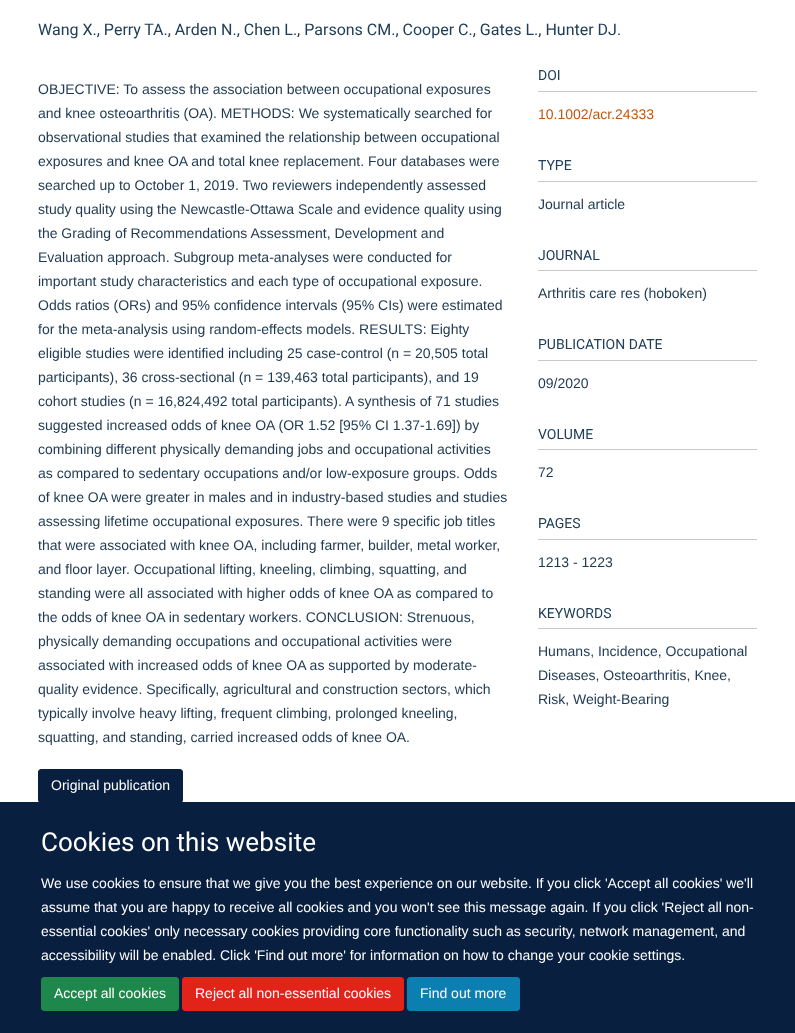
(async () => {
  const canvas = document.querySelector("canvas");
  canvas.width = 795;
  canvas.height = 1033;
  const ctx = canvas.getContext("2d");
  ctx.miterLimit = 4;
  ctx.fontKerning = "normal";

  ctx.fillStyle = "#ffffff";
  ctx.fillRect(0, 0, 795, 1033);
  ctx.fillStyle = "#091f40";
  ctx.beginPath();
  ctx.roundRect(38.5, 769.5, 144, 33, 2.5);
  ctx.fill();
  ctx.strokeStyle = "#091f40";
  ctx.stroke();
  for (const [x, y, w, h, color] of [
    [538, 91, 219, 1, "#c6cacf"],
    [538, 181, 219, 1, "#c6cacf"],
    [538, 270, 219, 1, "#c6cacf"],
    [538, 360, 219, 1, "#c6cacf"],
    [538, 449, 219, 1, "#c6cacf"],
    [538, 539, 219, 1, "#c6cacf"],
    [538, 628, 219, 1, "#c6cacf"],
    [0, 802, 795, 231, "#091f40"],
  ]) {
    ctx.fillStyle = color;
    ctx.fillRect(x, y, w, h);
  }
  ctx.fillStyle = "#1e874b";
  ctx.beginPath();
  ctx.roundRect(41.5, 977.5, 137, 33, 2.5);
  ctx.fill();
  ctx.strokeStyle = "#1e874b";
  ctx.stroke();
  ctx.fillStyle = "#e2231a";
  ctx.beginPath();
  ctx.roundRect(182.5, 977.5, 221, 33, 2.5);
  ctx.fill();
  ctx.strokeStyle = "#e2231a";
  ctx.stroke();
  ctx.fillStyle = "#0d7eb0";
  ctx.beginPath();
  ctx.roundRect(407.5, 977.5, 112, 33, 2.5);
  ctx.fill();
  ctx.strokeStyle = "#0d7eb0";
  ctx.stroke();
  ctx.font = "16px Heebo";
  ctx.fillStyle = "#203e58";
  ctx.fillText("Wang X., Perry TA., Arden N., Chen L., Parsons CM., Cooper C., Gates L., Hunter DJ.", 38, 35);
  ctx.font = "14px Liberation Sans";
  ctx.fillStyle = "#1d3850";
  for (const [text, x, y] of [
    ["OBJECTIVE: To assess the association between occupational exposures", 38, 94],
    ["and knee osteoarthritis (OA). METHODS: We systematically searched for", 38, 118],
    ["observational studies that examined the relationship between occupational", 38, 142],
    ["exposures and knee OA and total knee replacement. Four databases were", 38, 166],
    ["searched up to October 1, 2019. Two reviewers independently assessed", 38, 190],
    ["study quality using the Newcastle-Ottawa Scale and evidence quality using", 38, 214],
    ["the Grading of Recommendations Assessment, Development and", 38, 238],
    ["Evaluation approach. Subgroup meta-analyses were conducted for", 38, 262],
    ["important study characteristics and each type of occupational exposure.", 38, 286],
    ["Odds ratios (ORs) and 95% confidence intervals (95% CIs) were estimated", 38, 310],
    ["for the meta-analysis using random-effects models. RESULTS: Eighty", 38, 334],
    ["eligible studies were identified including 25 case-control (n = 20,505 total", 38, 358],
    ["participants), 36 cross-sectional (n = 139,463 total participants), and 19", 38, 382],
    ["cohort studies (n = 16,824,492 total participants). A synthesis of 71 studies", 38, 406],
    ["suggested increased odds of knee OA (OR 1.52 [95% CI 1.37-1.69]) by", 38, 430],
    ["combining different physically demanding jobs and occupational activities", 38, 454],
    ["as compared to sedentary occupations and/or low-exposure groups. Odds", 38, 478],
    ["of knee OA were greater in males and in industry-based studies and studies", 38, 502],
    ["assessing lifetime occupational exposures. There were 9 specific job titles", 38, 526],
    ["that were associated with knee OA, including farmer, builder, metal worker,", 38, 550],
    ["and floor layer. Occupational lifting, kneeling, climbing, squatting, and", 38, 574],
    ["standing were all associated with higher odds of knee OA as compared to", 38, 598],
    ["the odds of knee OA in sedentary workers. CONCLUSION: Strenuous,", 38, 622],
    ["physically demanding occupations and occupational activities were", 38, 646],
    ["associated with increased odds of knee OA as supported by moderate-", 38, 670],
    ["quality evidence. Specifically, agricultural and construction sectors, which", 38, 694],
    ["typically involve heavy lifting, frequent climbing, prolonged kneeling,", 38, 718],
    ["squatting, and standing, carried increased odds of knee OA.", 38, 742],
  ]) {
    ctx.fillText(text, x, y);
  }
  ctx.fillStyle = "#ffffff";
  ctx.fillText("Original publication", 51, 790);
  ctx.font = "14px Heebo";
  ctx.fillStyle = "#203e58";
  ctx.fillText("DOI", 538, 80);
  ctx.font = "14px Liberation Sans";
  ctx.fillStyle = "#c1570e";
  ctx.fillText("10.1002/acr.24333", 538, 119);
  ctx.font = "14px Heebo";
  ctx.fillStyle = "#203e58";
  ctx.fillText("TYPE", 538, 170);
  ctx.font = "14px Liberation Sans";
  ctx.fillStyle = "#1d3850";
  ctx.fillText("Journal article", 538, 209);
  ctx.font = "14px Heebo";
  ctx.fillStyle = "#203e58";
  ctx.fillText("JOURNAL", 538, 260);
  ctx.font = "14px Liberation Sans";
  ctx.fillStyle = "#1d3850";
  ctx.fillText("Arthritis care res (hoboken)", 538, 298);
  ctx.font = "14px Heebo";
  ctx.fillStyle = "#203e58";
  ctx.fillText("PUBLICATION DATE", 538, 349);
  ctx.font = "14px Liberation Sans";
  ctx.fillStyle = "#1d3850";
  ctx.fillText("09/2020", 538, 388);
  ctx.font = "14px Heebo";
  ctx.fillStyle = "#203e58";
  ctx.fillText("VOLUME", 538, 439);
  ctx.font = "14px Liberation Sans";
  ctx.fillStyle = "#1d3850";
  ctx.fillText("72", 538, 477);
  ctx.font = "14px Heebo";
  ctx.fillStyle = "#203e58";
  ctx.fillText("PAGES", 538, 528);
  ctx.font = "14px Liberation Sans";
  ctx.fillStyle = "#1d3850";
  ctx.fillText("1213 - 1223", 538, 567);
  ctx.font = "14px Heebo";
  ctx.fillStyle = "#203e58";
  ctx.fillText("KEYWORDS", 538, 618);
  ctx.font = "14px Liberation Sans";
  ctx.fillStyle = "#1d3850";
  for (const [text, x, y] of [
    ["Humans, Incidence, Occupational", 538, 656],
    ["Diseases, Osteoarthritis, Knee,", 538, 680],
    ["Risk, Weight-Bearing", 538, 704],
  ]) {
    ctx.fillText(text, x, y);
  }
  ctx.font = "26px Heebo";
  ctx.fillStyle = "#ffffff";
  ctx.fillText("Cookies on this website", 41, 851);
  ctx.font = "14px Liberation Sans";
  for (const [text, x, y] of [
    ["We use cookies to ensure that we give you the best experience on our website. If you click 'Accept all cookies' we'll", 41, 888],
    ["assume that you are happy to receive all cookies and you won't see this message again. If you click 'Reject all non-", 41, 912],
    ["essential cookies' only necessary cookies providing core functionality such as security, network management, and", 41, 936],
    ["accessibility will be enabled. Click 'Find out more' for information on how to change your cookie settings.", 41, 960],
    ["Accept all cookies", 54, 998],
    ["Reject all non-essential cookies", 195, 998],
    ["Find out more", 420, 998],
  ]) {
    ctx.fillText(text, x, y);
  }
})();
